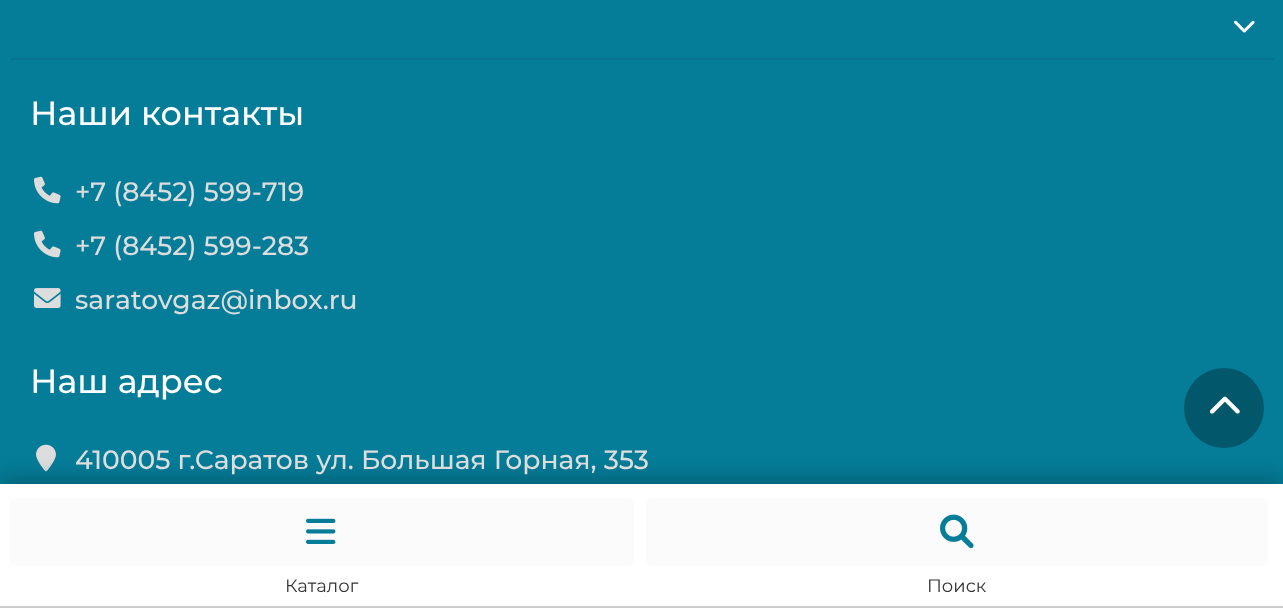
(async () => {
  const canvas = document.querySelector("canvas");
  canvas.width = 1283;
  canvas.height = 608;
  const ctx = canvas.getContext("2d");
  ctx.miterLimit = 4;
  ctx.fontKerning = "normal";
  async function loadImage(src) {
    const img = new Image();
    img.src = src;
    await img.decode();
    return img;
  }

  ctx.fillStyle = "#057d99";
  ctx.fillRect(0, 0, 1283, 608);
  ctx.drawImage(await loadImage("img/1.png"), 1234, 20, 21, 13);
  ctx.fillStyle = "#05748e";
  ctx.fillRect(10, 58, 1264, 2);
  ctx.drawImage(await loadImage("img/2.png"), 34, 176, 27, 28);
  ctx.drawImage(await loadImage("img/2.png"), 34, 230, 27, 28);
  ctx.drawImage(await loadImage("img/3.png"), 34, 288, 27, 20);
  ctx.drawImage(await loadImage("img/4.png"), 36, 444, 20, 28);
  ctx.fillStyle = "rgba(0, 0, 0, 0.2)";
  ctx.filter = "blur(10px)";
  ctx.beginPath();
  ctx.rect(0, 476, 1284, 124);
  ctx.fill();
  ctx.filter = "none";
  ctx.fillStyle = "#03576b";
  ctx.beginPath();
  ctx.arc(1224, 408, 40, 0, Math.PI * 2);
  ctx.fill();
  ctx.drawImage(await loadImage("img/5.png"), 1210, 396, 30, 18);
  ctx.fillStyle = "#ffffff";
  ctx.fillRect(0, 484, 1283, 122);
  ctx.fillStyle = "#cccccc";
  ctx.fillRect(0, 606, 1283, 2);
  ctx.fillStyle = "#fbfbfb";
  ctx.beginPath();
  ctx.roundRect(10, 498, 624, 68, 6);
  ctx.fill();
  ctx.drawImage(await loadImage("img/6.png"), 306, 518, 30, 26);
  ctx.beginPath();
  ctx.roundRect(646, 498, 622, 68, 6);
  ctx.fill();
  ctx.drawImage(await loadImage("img/7.png"), 940, 514, 34, 35);
  ctx.font = "500 33.5px Montserrat";
  ctx.fillStyle = "#ffffff";
  ctx.fillText("Наши контакты", 30, 125);
  ctx.font = "500 26.6px Montserrat";
  ctx.fillStyle = "#dddddd";
  for (const [text, x, y] of [
    ["+7 (8452) 599-719", 75, 201],
    ["+7 (8452) 599-283", 75, 255],
    ["saratovgaz@inbox.ru", 75, 309],
  ]) {
    ctx.fillText(text, x, y);
  }
  ctx.font = "500 33.5px Montserrat";
  ctx.fillStyle = "#ffffff";
  ctx.fillText("Наш адрес", 30, 393);
  ctx.font = "500 26.6px Montserrat";
  ctx.fillStyle = "#dddddd";
  ctx.fillText("410005 г.Саратов ул. Большая Горная, 353", 75, 469);
  ctx.font = "18px Montserrat";
  ctx.fillStyle = "#333333";
  ctx.fillText("Каталог", 285, 592);
  ctx.fillText("Поиск", 927, 592);
})();
